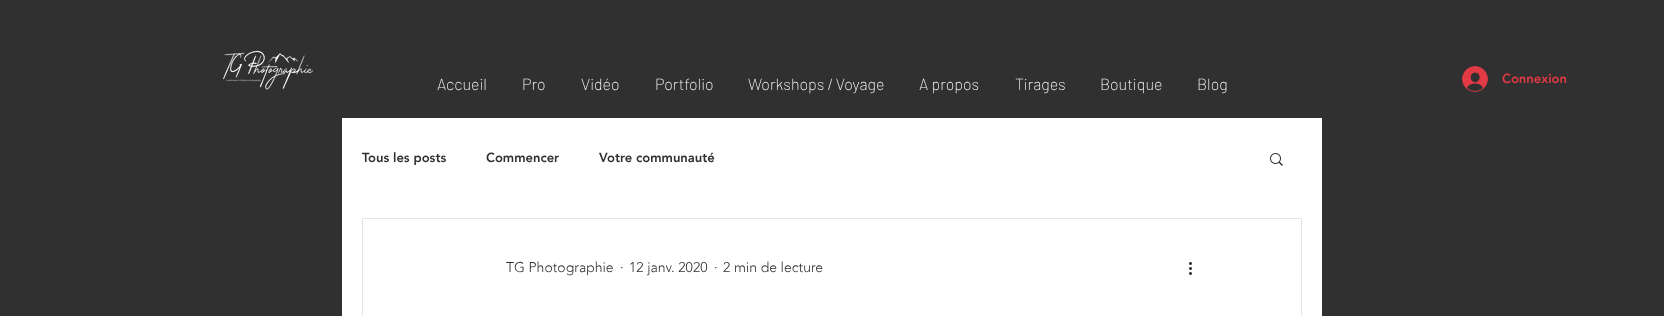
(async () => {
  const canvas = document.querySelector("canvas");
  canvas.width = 1664;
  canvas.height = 316;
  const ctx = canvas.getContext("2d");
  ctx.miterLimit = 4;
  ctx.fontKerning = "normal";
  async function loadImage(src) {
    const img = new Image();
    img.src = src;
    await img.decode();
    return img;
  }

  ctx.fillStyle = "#303030";
  ctx.fillRect(0, 0, 1664, 316);
  ctx.drawImage(await loadImage("img/1.png"), 223, 50, 90, 40);
  ctx.drawImage(await loadImage("img/2.png"), 1462, 66, 26, 26);
  ctx.fillStyle = "#ffffff";
  ctx.fillRect(342, 118, 980, 198);
  ctx.drawImage(await loadImage("img/3.png"), 1270, 153, 13, 13);
  ctx.strokeStyle = "#e4e4e4";
  ctx.strokeRect(362.5, 218.5, 939, 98);
  ctx.drawImage(await loadImage("img/4.png"), 1189, 262, 3, 13);
  ctx.font = "200 16px Barlow";
  for (const [text, x, y] of [
    ["Accueil", 437, 90],
    ["Pro", 522, 90],
    ["Vidéo", 581, 90],
    ["Portfolio", 655, 90],
    ["Workshops / Voyage", 748, 90],
    ["A propos", 919, 90],
    ["Tirages", 1015, 90],
    ["Boutique", 1100, 90],
    ["Blog", 1197, 90],
  ]) {
    ctx.fillText(text, x, y);
  }
  ctx.font = "900 13px 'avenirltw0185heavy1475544'";
  ctx.fillStyle = "#e13a44";
  ctx.fillText("Connexion", 1502, 83);
  ctx.fillStyle = "#303030";
  for (const [text, x, y] of [
    ["Tous les posts", 362, 162],
    ["Commencer", 486, 162],
    ["Votre communauté", 599, 162],
  ]) {
    ctx.fillText(text, x, y);
  }
  ctx.font = "300 14px 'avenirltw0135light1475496'";
  for (const [text, x, y] of [
    ["TG Photographie", 506, 272],
    ["·", 620, 272],
    ["12 janv. 2020", 629, 272],
    ["·", 714, 272],
    ["2 min de lecture", 723, 272],
  ]) {
    ctx.fillText(text, x, y);
  }
})();
